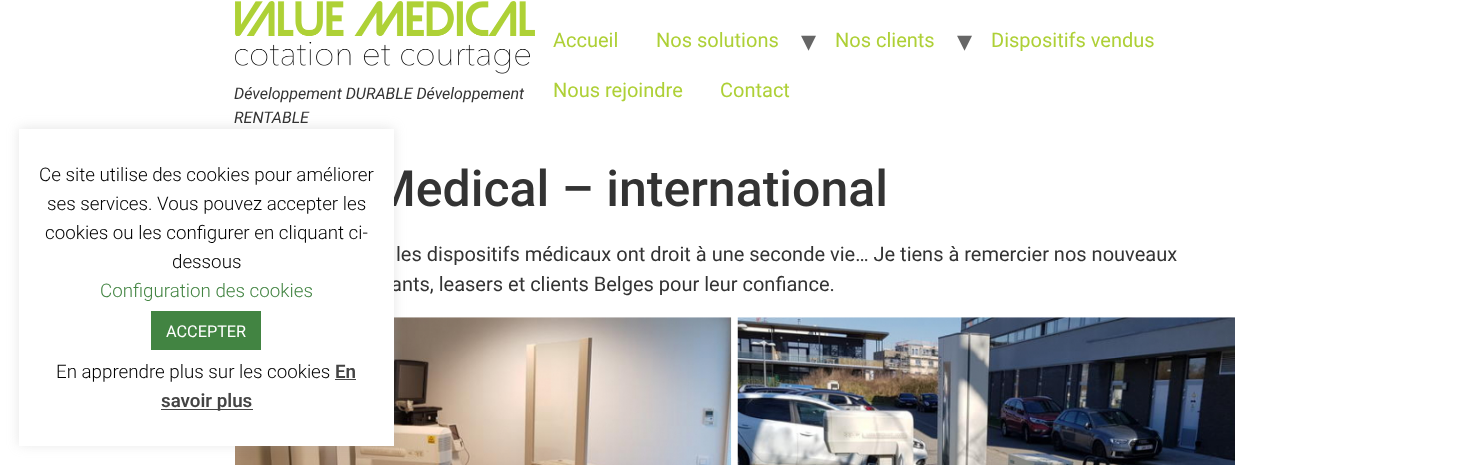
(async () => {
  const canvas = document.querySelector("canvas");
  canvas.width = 1468;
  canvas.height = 465;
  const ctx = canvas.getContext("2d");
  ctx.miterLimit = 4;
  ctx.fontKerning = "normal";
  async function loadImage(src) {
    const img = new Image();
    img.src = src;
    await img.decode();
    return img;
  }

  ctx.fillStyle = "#ffffff";
  ctx.fillRect(0, 0, 1468, 465);
  ctx.drawImage(await loadImage("img/1.png"), 235, 1, 300, 73);
  ctx.drawImage(await loadImage("img/2.png"), 235, 317, 497, 148);
  ctx.fillStyle = "rgba(172, 171, 171, 0.3)";
  ctx.filter = "blur(6px)";
  ctx.beginPath();
  ctx.rect(19, 128, 375, 317);
  ctx.fill();
  ctx.filter = "none";
  ctx.drawImage(await loadImage("img/3.png"), 737, 317, 498, 148);
  ctx.font = "italic 16px Roboto";
  ctx.fillStyle = "#333333";
  ctx.fillText("Développement DURABLE Développement", 234, 99);
  ctx.fillText("RENTABLE", 234, 123);
  ctx.font = "20px Roboto";
  ctx.fillStyle = "#aed036";
  ctx.fillText("Accueil", 553, 47);
  ctx.fillText("Nos solutions", 656, 47);
  ctx.font = "30px DejaVu Sans";
  ctx.fillStyle = "#666666";
  ctx.fillText("▾", 801, 51);
  ctx.font = "20px Roboto";
  ctx.fillStyle = "#aed036";
  ctx.fillText("Nos clients", 835, 47);
  ctx.font = "30px DejaVu Sans";
  ctx.fillStyle = "#666666";
  ctx.fillText("▾", 957, 51);
  ctx.font = "20px Roboto";
  ctx.fillStyle = "#aed036";
  for (const [text, x, y] of [
    ["Dispositifs vendus", 991, 47],
    ["Nous rejoindre", 553, 97],
    ["Contact", 720, 97],
  ]) {
    ctx.fillText(text, x, y);
  }
  ctx.font = "500 50px Roboto";
  ctx.fillStyle = "#333333";
  ctx.fillText("Medical – international", 372, 206);
  ctx.font = "20px Roboto";
  ctx.fillText("les dispositifs médicaux ont droit à une seconde vie… Je tiens à remercier nos nouveaux", 396, 261);
  ctx.fillText("ants, leasers et clients Belges pour leur confiance.", 391, 291);
  ctx.fillStyle = "#ffffff";
  ctx.fillRect(19, 129, 375, 317);
  ctx.fillStyle = "#428442";
  ctx.fillRect(151, 311, 110, 39);
  ctx.font = "16.25px Roboto";
  ctx.fillStyle = "#ffffff";
  ctx.fillText("ACCEPTER", 166, 337);
  ctx.fillStyle = "#444444";
  ctx.fillRect(161, 409, 92, 1);
  ctx.font = "600 18.75px Roboto";
  ctx.fillText("savoir plus", 161, 407);
  ctx.fillText("En", 335, 378);
  ctx.fillRect(335, 379, 21, 1);
  ctx.font = "300 18.75px Roboto";
  ctx.fillStyle = "#000000";
  ctx.fillText("En apprendre plus sur les cookies", 56, 378);
  ctx.fillStyle = "#428442";
  ctx.fillText("Configuration des cookies", 100, 297);
  ctx.fillStyle = "#000000";
  for (const [text, x, y] of [
    ["dessous", 172, 268],
    ["cookies ou les configurer en cliquant ci-", 45, 239],
    ["ses services. Vous pouvez accepter les", 47, 210],
    ["Ce site utilise des cookies pour améliorer", 39, 181],
  ]) {
    ctx.fillText(text, x, y);
  }
})();
